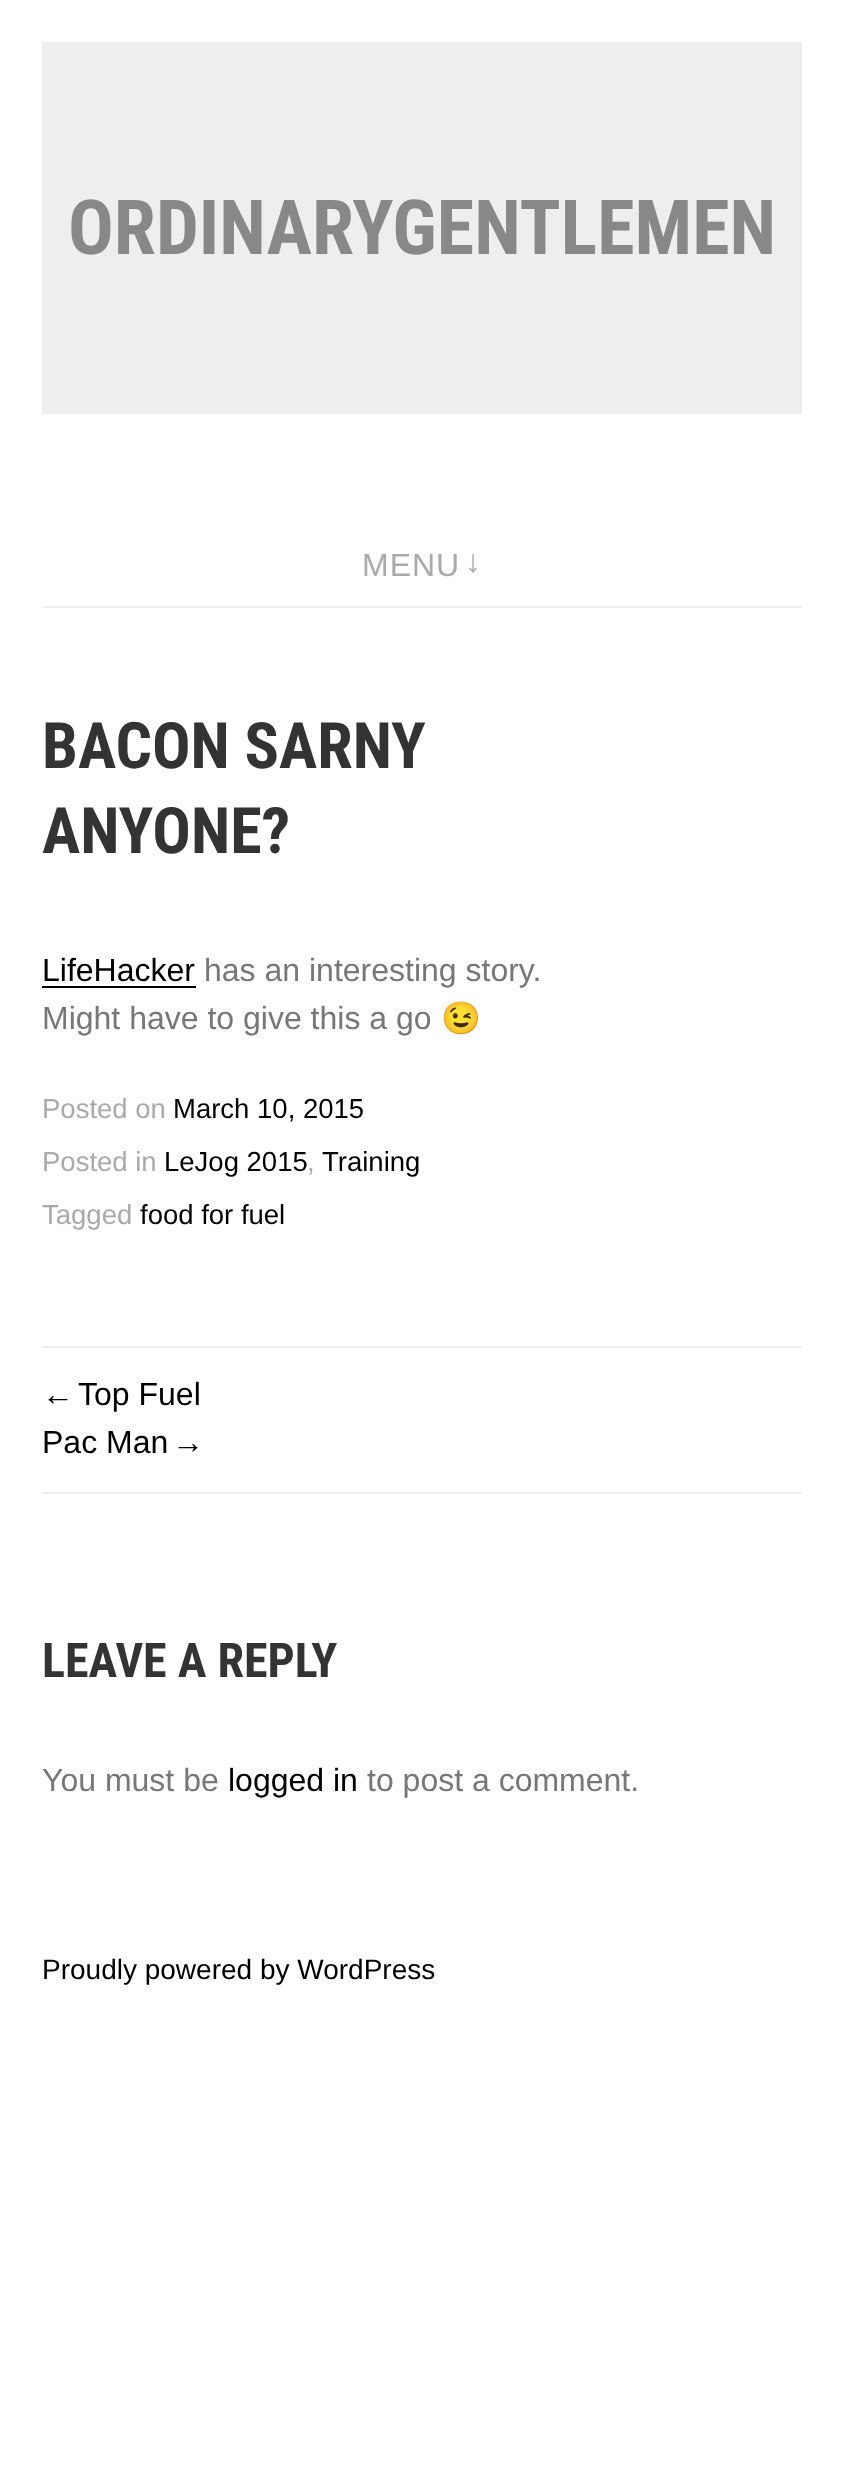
(async () => {
  const canvas = document.querySelector("canvas");
  canvas.width = 844;
  canvas.height = 2468;
  const ctx = canvas.getContext("2d");
  ctx.miterLimit = 4;
  ctx.fontKerning = "normal";

  ctx.fillStyle = "#ffffff";
  ctx.fillRect(0, 0, 844, 2468);
  for (const [x, y, w, h, color] of [
    [42, 42, 760, 372, "#eeeeee"],
    [42, 606, 760, 2, "#f0f0f0"],
    [42, 986, 154, 2, "#000000"],
    [42, 1346, 760, 2, "#eeeeee"],
    [42, 1492, 760, 2, "#eeeeee"],
  ]) {
    ctx.fillStyle = color;
    ctx.fillRect(x, y, w, h);
  }
  ctx.font = "bold 76px Roboto Condensed";
  ctx.fillStyle = "#888888";
  ctx.fillText("ORDINARYGENTLEMEN", 68, 254);
  ctx.letterSpacing = "1px";
  ctx.font = "32px Arimo";
  ctx.fillStyle = "#aaaaaa";
  ctx.fillText("MENU", 362, 576);
  ctx.fillText("↓", 465, 572);
  ctx.letterSpacing = "0px";
  ctx.font = "bold 64px Roboto Condensed";
  ctx.fillStyle = "#333333";
  ctx.fillText("BACON SARNY", 42, 768);
  ctx.fillText("ANYONE?", 42, 853);
  ctx.font = "32px Arimo";
  ctx.fillStyle = "#000000";
  ctx.fillText("LifeHacker", 42, 981);
  ctx.fillStyle = "#777777";
  ctx.fillText("has an interesting story.", 204, 981);
  ctx.fillText("Might have to give this a go", 42, 1029);
  ctx.font = "32px Noto Color Emoji";
  ctx.fillText("😉", 441, 1029);
  ctx.font = "27.5px Arimo";
  ctx.fillStyle = "#aaaaaa";
  ctx.fillText("Posted on", 42, 1118);
  ctx.fillStyle = "#000000";
  ctx.fillText("March 10, 2015", 173, 1118);
  ctx.fillStyle = "#aaaaaa";
  ctx.fillText("Posted in", 42, 1171);
  ctx.fillStyle = "#000000";
  ctx.fillText("LeJog 2015", 164, 1171);
  ctx.fillStyle = "#aaaaaa";
  ctx.fillText(",", 307, 1171);
  ctx.fillStyle = "#000000";
  ctx.fillText("Training", 322, 1171);
  ctx.fillStyle = "#aaaaaa";
  ctx.fillText("Tagged", 42, 1224);
  ctx.fillStyle = "#000000";
  ctx.fillText("food for fuel", 140, 1224);
  ctx.font = "32px Liberation Sans";
  ctx.fillText("←", 42, 1405);
  ctx.font = "32px Arimo";
  ctx.fillText("Top Fuel", 78, 1405);
  ctx.fillText("Pac Man", 42, 1453);
  ctx.font = "32px Liberation Sans";
  ctx.fillText("→", 172, 1453);
  ctx.font = "bold 48px Roboto Condensed";
  ctx.fillStyle = "#333333";
  ctx.fillText("LEAVE A REPLY", 42, 1677);
  ctx.font = "32px Arimo";
  ctx.fillStyle = "#777777";
  ctx.fillText("You must be", 42, 1791);
  ctx.fillStyle = "#000000";
  ctx.fillText("logged in", 228, 1791);
  ctx.fillStyle = "#777777";
  ctx.fillText("to post a comment.", 367, 1791);
  ctx.font = "28px Arimo";
  ctx.fillStyle = "#000000";
  ctx.fillText("Proudly powered by WordPress", 42, 1979);
})();
